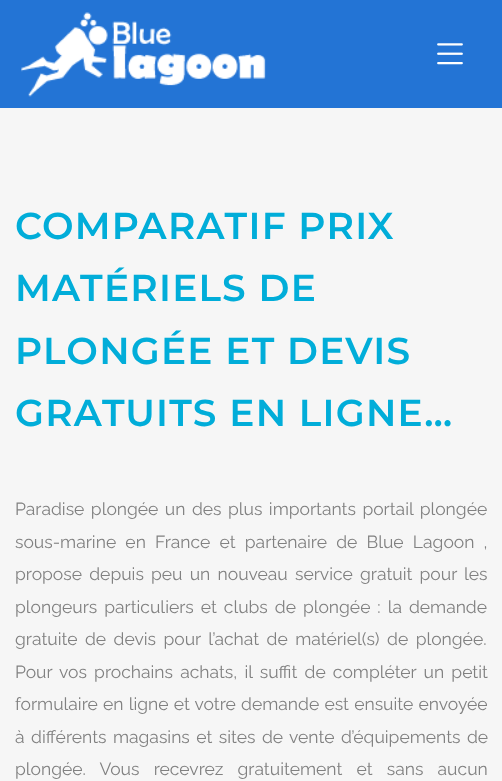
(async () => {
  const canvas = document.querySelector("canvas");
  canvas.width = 502;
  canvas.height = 781;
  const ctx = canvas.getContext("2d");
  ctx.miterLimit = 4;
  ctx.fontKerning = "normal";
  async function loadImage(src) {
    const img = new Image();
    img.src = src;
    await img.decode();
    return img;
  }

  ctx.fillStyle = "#f6f6f6";
  ctx.fillRect(0, 0, 502, 781);
  ctx.fillStyle = "#2374d5";
  ctx.fillRect(0, 0, 502, 108);
  ctx.drawImage(await loadImage("img/1.png"), 21, 12, 245, 85);
  ctx.drawImage(await loadImage("img/2.png"), 437, 43, 26, 22);
  ctx.letterSpacing = "1.25px";
  ctx.font = "600 37.5px Montserrat";
  ctx.fillStyle = "#01add9";
  for (const [text, x, y] of [
    ["COMPARATIF PRIX", 15, 239],
    ["MATÉRIELS DE", 15, 301],
    ["PLONGÉE ET DEVIS", 15, 364],
    ["GRATUITS EN LIGNE…", 15, 426],
  ]) {
    ctx.fillText(text, x, y);
  }
  ctx.letterSpacing = "0px";
  ctx.wordSpacing = "2px";
  ctx.font = "17.5px Raleway";
  ctx.fillStyle = "#818181";
  ctx.fillText("Paradise plongée un des plus importants portail plongée", 15, 515);
  ctx.wordSpacing = "4.75px";
  ctx.fillText("sous-marine en France et partenaire de Blue Lagoon ,", 15, 548);
  ctx.wordSpacing = "2.75px";
  ctx.fillText("propose depuis peu un nouveau service gratuit pour les", 15, 580);
  ctx.wordSpacing = "2.5px";
  ctx.fillText("plongeurs particuliers et clubs de plongée : la demande", 15, 613);
  ctx.wordSpacing = "3px";
  ctx.fillText("gratuite de devis pour l’achat de matériel(s) de plongée.", 15, 645);
  ctx.wordSpacing = "2.75px";
  ctx.fillText("Pour vos prochains achats, il suffit de compléter un petit", 15, 678);
  ctx.wordSpacing = "0.75px";
  ctx.fillText("formulaire en ligne et votre demande est ensuite envoyée", 15, 710);
  ctx.wordSpacing = "2px";
  ctx.fillText("à différents magasins et sites de vente d’équipements de", 15, 743);
  ctx.wordSpacing = "9.75px";
  ctx.fillText("plongée. Vous recevrez gratuitement et sans aucun", 15, 775);
})();
